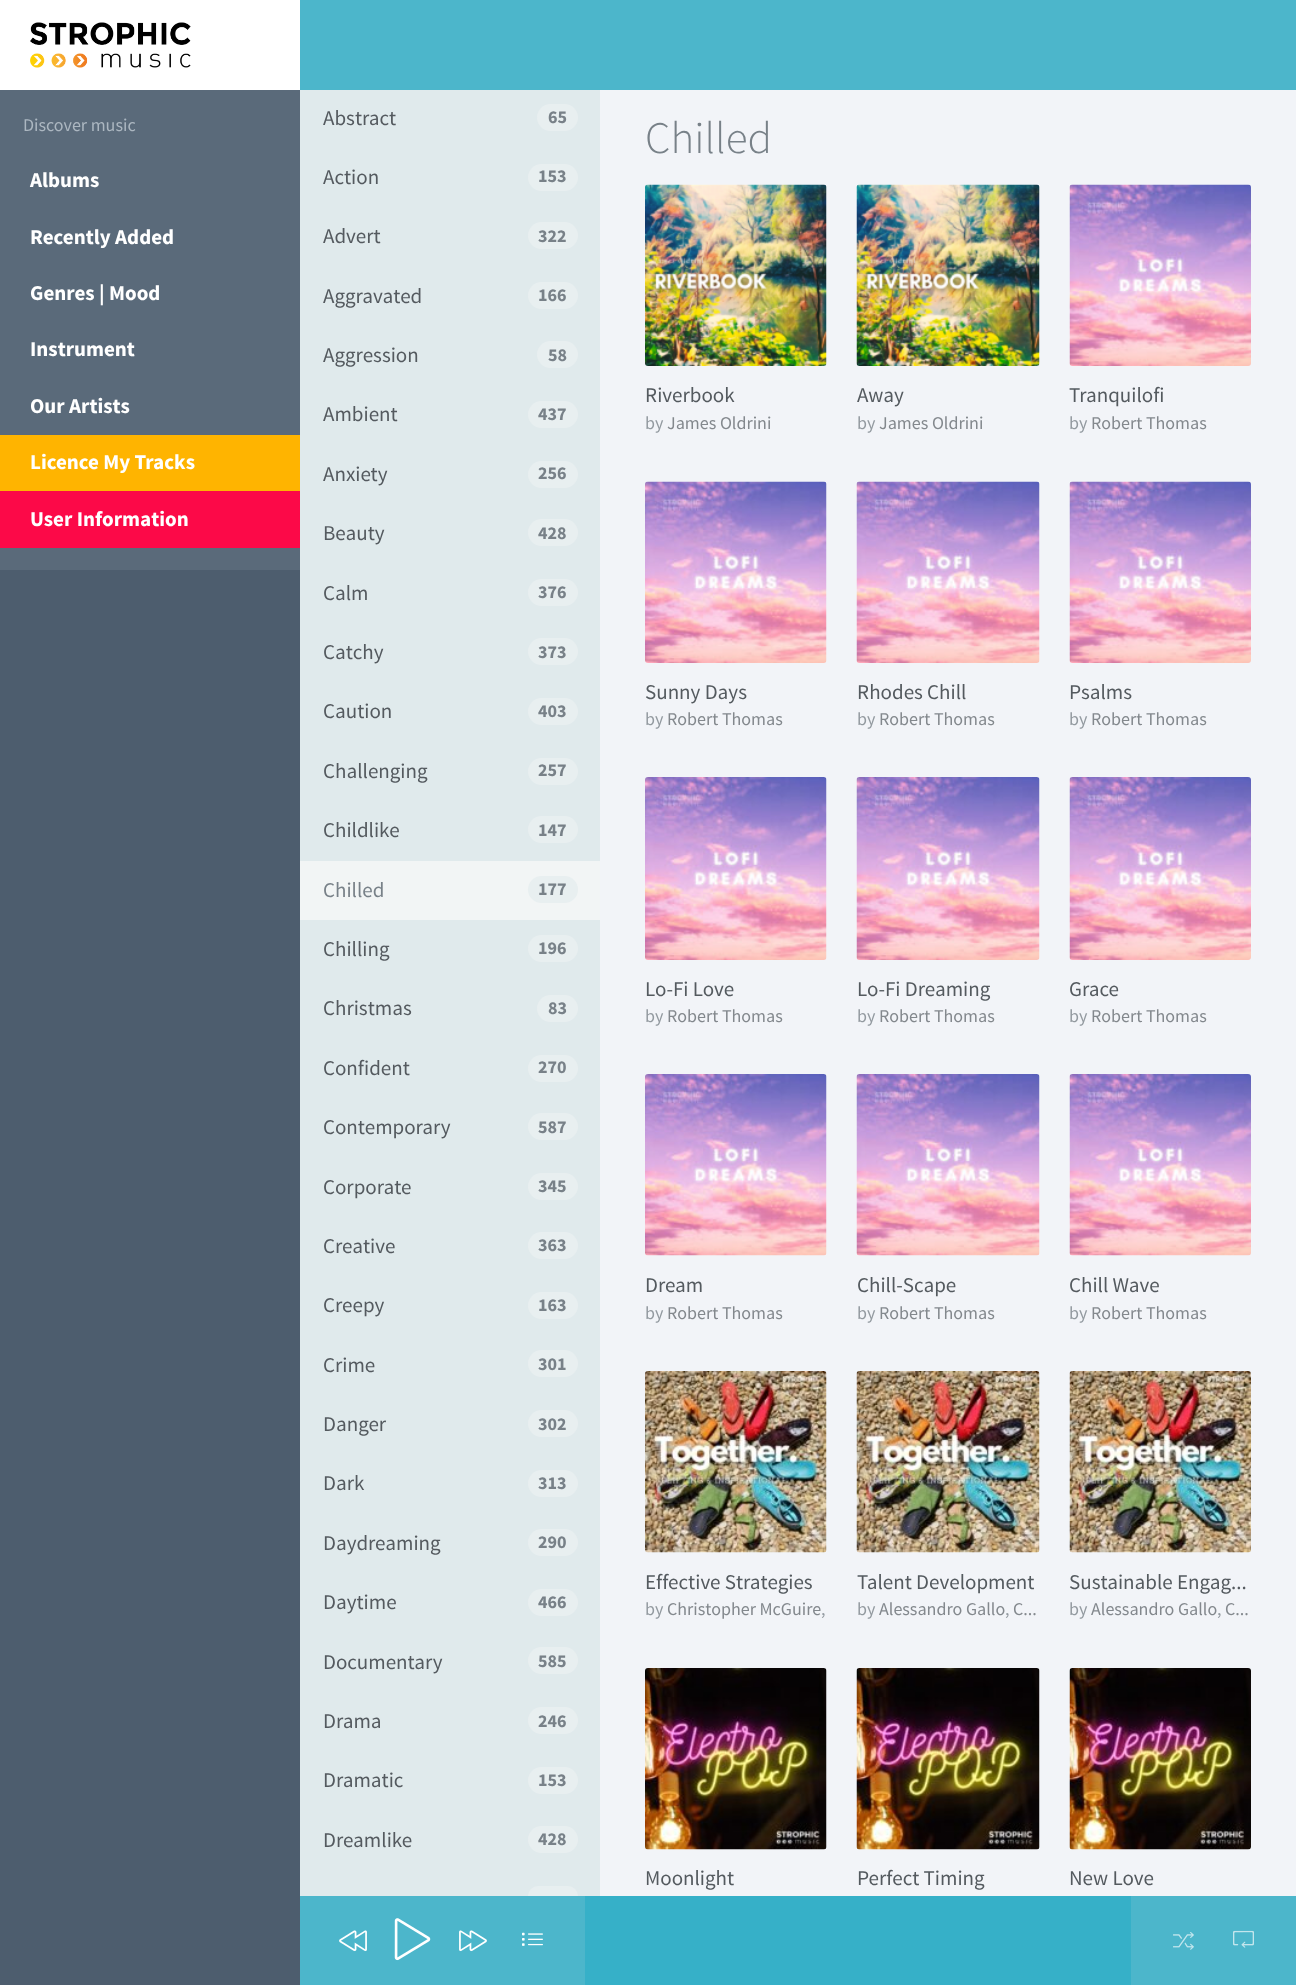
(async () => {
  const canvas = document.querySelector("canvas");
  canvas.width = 1296;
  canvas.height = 1985;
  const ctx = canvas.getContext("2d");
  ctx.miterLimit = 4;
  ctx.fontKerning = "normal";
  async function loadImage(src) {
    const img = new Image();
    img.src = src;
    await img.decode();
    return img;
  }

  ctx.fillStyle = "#f2f4f8";
  ctx.fillRect(0, 0, 1296, 1985);
  ctx.fillStyle = "#ffffff";
  ctx.fillRect(0, 0, 300, 90);
  ctx.drawImage(await loadImage("img/1.png"), 30, 22, 161, 46);
  for (const [x, y, w, h, color] of [
    [300, 0, 996, 90, "#4cb6cb"],
    [0, 570, 300, 1415, "#4d5d6e"],
    [0, 90, 300, 480, "#5a6a7a"],
    [0, 435, 300, 56, "#ffb400"],
    [0, 491, 300, 57, "#fc0948"],
    [300, 90, 300, 1806, "#e0eaec"],
  ]) {
    ctx.fillStyle = color;
    ctx.fillRect(x, y, w, h);
  }
  ctx.fillStyle = "#e8eff0";
  ctx.beginPath();
  ctx.roundRect(537, 104, 41, 27, 13.5);
  ctx.fill();
  ctx.beginPath();
  ctx.roundRect(528, 164, 50, 27, 13.5);
  ctx.fill();
  ctx.beginPath();
  ctx.roundRect(528, 222, 50, 27, 13.5);
  ctx.fill();
  ctx.beginPath();
  ctx.roundRect(528, 282, 50, 27, 13.5);
  ctx.fill();
  ctx.beginPath();
  ctx.roundRect(537, 341, 41, 27, 13.5);
  ctx.fill();
  ctx.beginPath();
  ctx.roundRect(528, 401, 50, 27, 13.5);
  ctx.fill();
  ctx.beginPath();
  ctx.roundRect(528, 461, 50, 27, 13.5);
  ctx.fill();
  ctx.beginPath();
  ctx.roundRect(528, 519, 50, 27, 13.5);
  ctx.fill();
  ctx.beginPath();
  ctx.roundRect(528, 579, 50, 27, 13.5);
  ctx.fill();
  ctx.beginPath();
  ctx.roundRect(528, 638, 50, 27, 13.5);
  ctx.fill();
  ctx.beginPath();
  ctx.roundRect(528, 698, 50, 27, 13.5);
  ctx.fill();
  ctx.beginPath();
  ctx.roundRect(528, 758, 50, 27, 13.5);
  ctx.fill();
  ctx.beginPath();
  ctx.roundRect(528, 816, 50, 27, 13.5);
  ctx.fill();
  ctx.fillStyle = "#f2f5f5";
  ctx.fillRect(300, 861, 300, 59);
  ctx.fillStyle = "#e8eff0";
  ctx.beginPath();
  ctx.roundRect(528, 876, 50, 27, 13.5);
  ctx.fill();
  ctx.beginPath();
  ctx.roundRect(528, 935, 50, 27, 13.5);
  ctx.fill();
  ctx.beginPath();
  ctx.roundRect(537, 995, 41, 27, 13.5);
  ctx.fill();
  ctx.beginPath();
  ctx.roundRect(528, 1055, 50, 27, 13.5);
  ctx.fill();
  ctx.beginPath();
  ctx.roundRect(528, 1113, 50, 27, 13.5);
  ctx.fill();
  ctx.beginPath();
  ctx.roundRect(528, 1173, 50, 27, 13.5);
  ctx.fill();
  ctx.beginPath();
  ctx.roundRect(528, 1232, 50, 27, 13.5);
  ctx.fill();
  ctx.beginPath();
  ctx.roundRect(528, 1292, 50, 27, 13.5);
  ctx.fill();
  ctx.beginPath();
  ctx.roundRect(528, 1350, 50, 27, 13.5);
  ctx.fill();
  ctx.beginPath();
  ctx.roundRect(528, 1410, 50, 27, 13.5);
  ctx.fill();
  ctx.beginPath();
  ctx.roundRect(528, 1470, 50, 27, 13.5);
  ctx.fill();
  ctx.beginPath();
  ctx.roundRect(528, 1529, 50, 27, 13.5);
  ctx.fill();
  ctx.beginPath();
  ctx.roundRect(528, 1589, 50, 27, 13.5);
  ctx.fill();
  ctx.beginPath();
  ctx.roundRect(528, 1647, 50, 27, 13.5);
  ctx.fill();
  ctx.beginPath();
  ctx.roundRect(528, 1707, 50, 27, 13.5);
  ctx.fill();
  ctx.beginPath();
  ctx.roundRect(528, 1767, 50, 27, 13.5);
  ctx.fill();
  ctx.beginPath();
  ctx.roundRect(528, 1826, 50, 27, 13.5);
  ctx.fill();
  ctx.beginPath();
  ctx.roundRect(528, 1886, 50, 10, [13.5, 13.5, 0, 0]);
  ctx.fill();
  ctx.drawImage(await loadImage("img/2.png"), 645, 184, 182, 182);
  ctx.drawImage(await loadImage("img/3.png"), 856, 184, 184, 182);
  ctx.drawImage(await loadImage("img/4.png"), 1069, 184, 182, 182);
  ctx.drawImage(await loadImage("img/5.png"), 645, 481, 182, 182);
  ctx.drawImage(await loadImage("img/6.png"), 856, 481, 184, 182);
  ctx.drawImage(await loadImage("img/7.png"), 1069, 481, 182, 182);
  ctx.drawImage(await loadImage("img/8.png"), 645, 777, 182, 183);
  ctx.drawImage(await loadImage("img/9.png"), 856, 777, 184, 183);
  ctx.drawImage(await loadImage("img/10.png"), 1069, 777, 182, 183);
  ctx.drawImage(await loadImage("img/11.png"), 645, 1074, 182, 182);
  ctx.drawImage(await loadImage("img/12.png"), 856, 1074, 184, 182);
  ctx.drawImage(await loadImage("img/13.png"), 1069, 1074, 182, 182);
  ctx.drawImage(await loadImage("img/14.png"), 645, 1371, 182, 182);
  ctx.drawImage(await loadImage("img/15.png"), 856, 1371, 184, 182);
  ctx.drawImage(await loadImage("img/16.png"), 1069, 1371, 182, 182);
  ctx.drawImage(await loadImage("img/17.png"), 645, 1668, 182, 182);
  ctx.drawImage(await loadImage("img/18.png"), 856, 1668, 184, 182);
  ctx.drawImage(await loadImage("img/19.png"), 1069, 1668, 182, 182);
  ctx.fillStyle = "#4cb6cb";
  ctx.fillRect(300, 1896, 996, 89);
  ctx.drawImage(await loadImage("img/20.png"), 339, 1930, 28, 22);
  ctx.drawImage(await loadImage("img/21.png"), 394, 1918, 37, 43);
  ctx.drawImage(await loadImage("img/22.png"), 459, 1930, 28, 22);
  ctx.drawImage(await loadImage("img/23.png"), 522, 1932, 21, 14);
  ctx.fillStyle = "#36b0c8";
  ctx.fillRect(585, 1896, 546, 89);
  ctx.drawImage(await loadImage("img/24.png"), 1173, 1932, 21, 18);
  ctx.drawImage(await loadImage("img/25.png"), 1233, 1930, 21, 18);
  ctx.font = "18px Source Sans Pro";
  ctx.fillStyle = "#acb7c1";
  ctx.fillText("Discover music", 23, 131);
  ctx.font = "bold 21px Source Sans Pro";
  ctx.fillStyle = "#ffffff";
  for (const [text, x, y] of [
    ["Albums", 30, 187],
    ["Recently Added", 30, 244],
    ["Genres | Mood", 30, 300],
    ["Instrument", 30, 356],
    ["Our Artists", 30, 413],
    ["Licence My Tracks", 30, 469],
    ["User Information", 30, 526],
  ]) {
    ctx.fillText(text, x, y);
  }
  ctx.font = "21px Source Sans Pro";
  ctx.fillStyle = "#545a5f";
  ctx.fillText("Abstract", 323, 125);
  ctx.font = "bold 18px Source Sans Pro";
  ctx.fillStyle = "#788188";
  ctx.fillText("65", 548, 123);
  ctx.font = "21px Source Sans Pro";
  ctx.fillStyle = "#545a5f";
  ctx.fillText("Action", 323, 184);
  ctx.font = "bold 18px Source Sans Pro";
  ctx.fillStyle = "#788188";
  ctx.fillText("153", 538, 182);
  ctx.font = "21px Source Sans Pro";
  ctx.fillStyle = "#545a5f";
  ctx.fillText("Advert", 323, 243);
  ctx.font = "bold 18px Source Sans Pro";
  ctx.fillStyle = "#788188";
  ctx.fillText("322", 538, 242);
  ctx.font = "21px Source Sans Pro";
  ctx.fillStyle = "#545a5f";
  ctx.fillText("Aggravated", 323, 303);
  ctx.font = "bold 18px Source Sans Pro";
  ctx.fillStyle = "#788188";
  ctx.fillText("166", 538, 301);
  ctx.font = "21px Source Sans Pro";
  ctx.fillStyle = "#545a5f";
  ctx.fillText("Aggression", 323, 362);
  ctx.font = "bold 18px Source Sans Pro";
  ctx.fillStyle = "#788188";
  ctx.fillText("58", 548, 361);
  ctx.font = "21px Source Sans Pro";
  ctx.fillStyle = "#545a5f";
  ctx.fillText("Ambient", 323, 421);
  ctx.font = "bold 18px Source Sans Pro";
  ctx.fillStyle = "#788188";
  ctx.fillText("437", 538, 420);
  ctx.font = "21px Source Sans Pro";
  ctx.fillStyle = "#545a5f";
  ctx.fillText("Anxiety", 323, 481);
  ctx.font = "bold 18px Source Sans Pro";
  ctx.fillStyle = "#788188";
  ctx.fillText("256", 538, 479);
  ctx.font = "21px Source Sans Pro";
  ctx.fillStyle = "#545a5f";
  ctx.fillText("Beauty", 323, 540);
  ctx.font = "bold 18px Source Sans Pro";
  ctx.fillStyle = "#788188";
  ctx.fillText("428", 538, 539);
  ctx.font = "21px Source Sans Pro";
  ctx.fillStyle = "#545a5f";
  ctx.fillText("Calm", 323, 600);
  ctx.font = "bold 18px Source Sans Pro";
  ctx.fillStyle = "#788188";
  ctx.fillText("376", 538, 598);
  ctx.font = "21px Source Sans Pro";
  ctx.fillStyle = "#545a5f";
  ctx.fillText("Catchy", 323, 659);
  ctx.font = "bold 18px Source Sans Pro";
  ctx.fillStyle = "#788188";
  ctx.fillText("373", 538, 658);
  ctx.font = "21px Source Sans Pro";
  ctx.fillStyle = "#545a5f";
  ctx.fillText("Caution", 323, 718);
  ctx.font = "bold 18px Source Sans Pro";
  ctx.fillStyle = "#788188";
  ctx.fillText("403", 538, 717);
  ctx.font = "21px Source Sans Pro";
  ctx.fillStyle = "#545a5f";
  ctx.fillText("Challenging", 323, 778);
  ctx.font = "bold 18px Source Sans Pro";
  ctx.fillStyle = "#788188";
  ctx.fillText("257", 538, 776);
  ctx.font = "21px Source Sans Pro";
  ctx.fillStyle = "#545a5f";
  ctx.fillText("Childlike", 323, 837);
  ctx.font = "bold 18px Source Sans Pro";
  ctx.fillStyle = "#788188";
  ctx.fillText("147", 538, 836);
  ctx.font = "21px Source Sans Pro";
  ctx.fillText("Chilled", 323, 897);
  ctx.font = "bold 18px Source Sans Pro";
  ctx.fillText("177", 538, 895);
  ctx.font = "21px Source Sans Pro";
  ctx.fillStyle = "#545a5f";
  ctx.fillText("Chilling", 323, 956);
  ctx.font = "bold 18px Source Sans Pro";
  ctx.fillStyle = "#788188";
  ctx.fillText("196", 538, 954);
  ctx.font = "21px Source Sans Pro";
  ctx.fillStyle = "#545a5f";
  ctx.fillText("Christmas", 323, 1015);
  ctx.font = "bold 18px Source Sans Pro";
  ctx.fillStyle = "#788188";
  ctx.fillText("83", 548, 1014);
  ctx.font = "21px Source Sans Pro";
  ctx.fillStyle = "#545a5f";
  ctx.fillText("Confident", 323, 1075);
  ctx.font = "bold 18px Source Sans Pro";
  ctx.fillStyle = "#788188";
  ctx.fillText("270", 538, 1073);
  ctx.font = "21px Source Sans Pro";
  ctx.fillStyle = "#545a5f";
  ctx.fillText("Contemporary", 323, 1134);
  ctx.font = "bold 18px Source Sans Pro";
  ctx.fillStyle = "#788188";
  ctx.fillText("587", 538, 1133);
  ctx.font = "21px Source Sans Pro";
  ctx.fillStyle = "#545a5f";
  ctx.fillText("Corporate", 323, 1194);
  ctx.font = "bold 18px Source Sans Pro";
  ctx.fillStyle = "#788188";
  ctx.fillText("345", 538, 1192);
  ctx.font = "21px Source Sans Pro";
  ctx.fillStyle = "#545a5f";
  ctx.fillText("Creative", 323, 1253);
  ctx.font = "bold 18px Source Sans Pro";
  ctx.fillStyle = "#788188";
  ctx.fillText("363", 538, 1251);
  ctx.font = "21px Source Sans Pro";
  ctx.fillStyle = "#545a5f";
  ctx.fillText("Creepy", 323, 1312);
  ctx.font = "bold 18px Source Sans Pro";
  ctx.fillStyle = "#788188";
  ctx.fillText("163", 538, 1311);
  ctx.font = "21px Source Sans Pro";
  ctx.fillStyle = "#545a5f";
  ctx.fillText("Crime", 323, 1372);
  ctx.font = "bold 18px Source Sans Pro";
  ctx.fillStyle = "#788188";
  ctx.fillText("301", 538, 1370);
  ctx.font = "21px Source Sans Pro";
  ctx.fillStyle = "#545a5f";
  ctx.fillText("Danger", 323, 1431);
  ctx.font = "bold 18px Source Sans Pro";
  ctx.fillStyle = "#788188";
  ctx.fillText("302", 538, 1430);
  ctx.font = "21px Source Sans Pro";
  ctx.fillStyle = "#545a5f";
  ctx.fillText("Dark", 323, 1490);
  ctx.font = "bold 18px Source Sans Pro";
  ctx.fillStyle = "#788188";
  ctx.fillText("313", 538, 1489);
  ctx.font = "21px Source Sans Pro";
  ctx.fillStyle = "#545a5f";
  ctx.fillText("Daydreaming", 323, 1550);
  ctx.font = "bold 18px Source Sans Pro";
  ctx.fillStyle = "#788188";
  ctx.fillText("290", 538, 1548);
  ctx.font = "21px Source Sans Pro";
  ctx.fillStyle = "#545a5f";
  ctx.fillText("Daytime", 323, 1609);
  ctx.font = "bold 18px Source Sans Pro";
  ctx.fillStyle = "#788188";
  ctx.fillText("466", 538, 1608);
  ctx.font = "21px Source Sans Pro";
  ctx.fillStyle = "#545a5f";
  ctx.fillText("Documentary", 323, 1669);
  ctx.font = "bold 18px Source Sans Pro";
  ctx.fillStyle = "#788188";
  ctx.fillText("585", 538, 1667);
  ctx.font = "21px Source Sans Pro";
  ctx.fillStyle = "#545a5f";
  ctx.fillText("Drama", 323, 1728);
  ctx.font = "bold 18px Source Sans Pro";
  ctx.fillStyle = "#788188";
  ctx.fillText("246", 538, 1727);
  ctx.font = "21px Source Sans Pro";
  ctx.fillStyle = "#545a5f";
  ctx.fillText("Dramatic", 323, 1787);
  ctx.font = "bold 18px Source Sans Pro";
  ctx.fillStyle = "#788188";
  ctx.fillText("153", 538, 1786);
  ctx.font = "21px Source Sans Pro";
  ctx.fillStyle = "#545a5f";
  ctx.fillText("Dreamlike", 323, 1847);
  ctx.font = "bold 18px Source Sans Pro";
  ctx.fillStyle = "#788188";
  ctx.fillText("428", 538, 1845);
  ctx.font = "300 45px Source Sans Pro";
  ctx.fillText("Chilled", 645, 153);
  ctx.font = "21px Source Sans Pro";
  ctx.fillStyle = "#545a5f";
  ctx.fillText("Riverbook", 645, 402);
  ctx.font = "18px Source Sans Pro";
  ctx.fillStyle = "#939aa0";
  ctx.fillText("by", 645, 429);
  ctx.fillStyle = "#83888d";
  ctx.fillText("James Oldrini", 667, 429);
  ctx.font = "21px Source Sans Pro";
  ctx.fillStyle = "#545a5f";
  ctx.fillText("Away", 857, 402);
  ctx.font = "18px Source Sans Pro";
  ctx.fillStyle = "#939aa0";
  ctx.fillText("by", 857, 429);
  ctx.fillStyle = "#83888d";
  ctx.fillText("James Oldrini", 879, 429);
  ctx.font = "21px Source Sans Pro";
  ctx.fillStyle = "#545a5f";
  ctx.fillText("Tranquilofi", 1069, 402);
  ctx.font = "18px Source Sans Pro";
  ctx.fillStyle = "#939aa0";
  ctx.fillText("by", 1069, 429);
  ctx.fillStyle = "#83888d";
  ctx.fillText("Robert Thomas", 1091, 429);
  ctx.font = "21px Source Sans Pro";
  ctx.fillStyle = "#545a5f";
  ctx.fillText("Sunny Days", 645, 699);
  ctx.font = "18px Source Sans Pro";
  ctx.fillStyle = "#939aa0";
  ctx.fillText("by", 645, 725);
  ctx.fillStyle = "#83888d";
  ctx.fillText("Robert Thomas", 667, 725);
  ctx.font = "21px Source Sans Pro";
  ctx.fillStyle = "#545a5f";
  ctx.fillText("Rhodes Chill", 857, 699);
  ctx.font = "18px Source Sans Pro";
  ctx.fillStyle = "#939aa0";
  ctx.fillText("by", 857, 725);
  ctx.fillStyle = "#83888d";
  ctx.fillText("Robert Thomas", 879, 725);
  ctx.font = "21px Source Sans Pro";
  ctx.fillStyle = "#545a5f";
  ctx.fillText("Psalms", 1069, 699);
  ctx.font = "18px Source Sans Pro";
  ctx.fillStyle = "#939aa0";
  ctx.fillText("by", 1069, 725);
  ctx.fillStyle = "#83888d";
  ctx.fillText("Robert Thomas", 1091, 725);
  ctx.font = "21px Source Sans Pro";
  ctx.fillStyle = "#545a5f";
  ctx.fillText("Lo-Fi Love", 645, 996);
  ctx.font = "18px Source Sans Pro";
  ctx.fillStyle = "#939aa0";
  ctx.fillText("by", 645, 1022);
  ctx.fillStyle = "#83888d";
  ctx.fillText("Robert Thomas", 667, 1022);
  ctx.font = "21px Source Sans Pro";
  ctx.fillStyle = "#545a5f";
  ctx.fillText("Lo-Fi Dreaming", 857, 996);
  ctx.font = "18px Source Sans Pro";
  ctx.fillStyle = "#939aa0";
  ctx.fillText("by", 857, 1022);
  ctx.fillStyle = "#83888d";
  ctx.fillText("Robert Thomas", 879, 1022);
  ctx.font = "21px Source Sans Pro";
  ctx.fillStyle = "#545a5f";
  ctx.fillText("Grace", 1069, 996);
  ctx.font = "18px Source Sans Pro";
  ctx.fillStyle = "#939aa0";
  ctx.fillText("by", 1069, 1022);
  ctx.fillStyle = "#83888d";
  ctx.fillText("Robert Thomas", 1091, 1022);
  ctx.font = "21px Source Sans Pro";
  ctx.fillStyle = "#545a5f";
  ctx.fillText("Dream", 645, 1292);
  ctx.font = "18px Source Sans Pro";
  ctx.fillStyle = "#939aa0";
  ctx.fillText("by", 645, 1319);
  ctx.fillStyle = "#83888d";
  ctx.fillText("Robert Thomas", 667, 1319);
  ctx.font = "21px Source Sans Pro";
  ctx.fillStyle = "#545a5f";
  ctx.fillText("Chill-Scape", 857, 1292);
  ctx.font = "18px Source Sans Pro";
  ctx.fillStyle = "#939aa0";
  ctx.fillText("by", 857, 1319);
  ctx.fillStyle = "#83888d";
  ctx.fillText("Robert Thomas", 879, 1319);
  ctx.font = "21px Source Sans Pro";
  ctx.fillStyle = "#545a5f";
  ctx.fillText("Chill Wave", 1069, 1292);
  ctx.font = "18px Source Sans Pro";
  ctx.fillStyle = "#939aa0";
  ctx.fillText("by", 1069, 1319);
  ctx.fillStyle = "#83888d";
  ctx.fillText("Robert Thomas", 1091, 1319);
  ctx.font = "21px Source Sans Pro";
  ctx.fillStyle = "#545a5f";
  ctx.fillText("Effective Strategies", 645, 1589);
  ctx.font = "18px Source Sans Pro";
  ctx.fillStyle = "#939aa0";
  ctx.fillText("by", 645, 1615);
  ctx.fillStyle = "#83888d";
  ctx.fillText("Christopher McGuire", 667, 1615);
  ctx.fillStyle = "#939aa0";
  ctx.fillText(",", 821, 1615);
  ctx.font = "21px Source Sans Pro";
  ctx.fillStyle = "#545a5f";
  ctx.fillText("Talent Development", 857, 1589);
  ctx.font = "18px Source Sans Pro";
  ctx.fillStyle = "#939aa0";
  ctx.fillText("by", 857, 1615);
  ctx.fillStyle = "#83888d";
  ctx.fillText("Alessandro Gallo", 879, 1615);
  ctx.fillStyle = "#939aa0";
  ctx.fillText(",", 1005, 1615);
  ctx.fillStyle = "#83888d";
  ctx.fillText("C...", 1013, 1615);
  ctx.font = "21px Source Sans Pro";
  ctx.fillStyle = "#545a5f";
  ctx.fillText("Sustainable Engag...", 1069, 1589);
  ctx.font = "18px Source Sans Pro";
  ctx.fillStyle = "#939aa0";
  ctx.fillText("by", 1069, 1615);
  ctx.fillStyle = "#83888d";
  ctx.fillText("Alessandro Gallo", 1091, 1615);
  ctx.fillStyle = "#939aa0";
  ctx.fillText(",", 1217, 1615);
  ctx.fillStyle = "#83888d";
  ctx.fillText("C...", 1225, 1615);
  ctx.font = "21px Source Sans Pro";
  ctx.fillStyle = "#545a5f";
  for (const [text, x, y] of [
    ["Moonlight", 645, 1885],
    ["Perfect Timing", 857, 1885],
    ["New Love", 1069, 1885],
  ]) {
    ctx.fillText(text, x, y);
  }
})();
